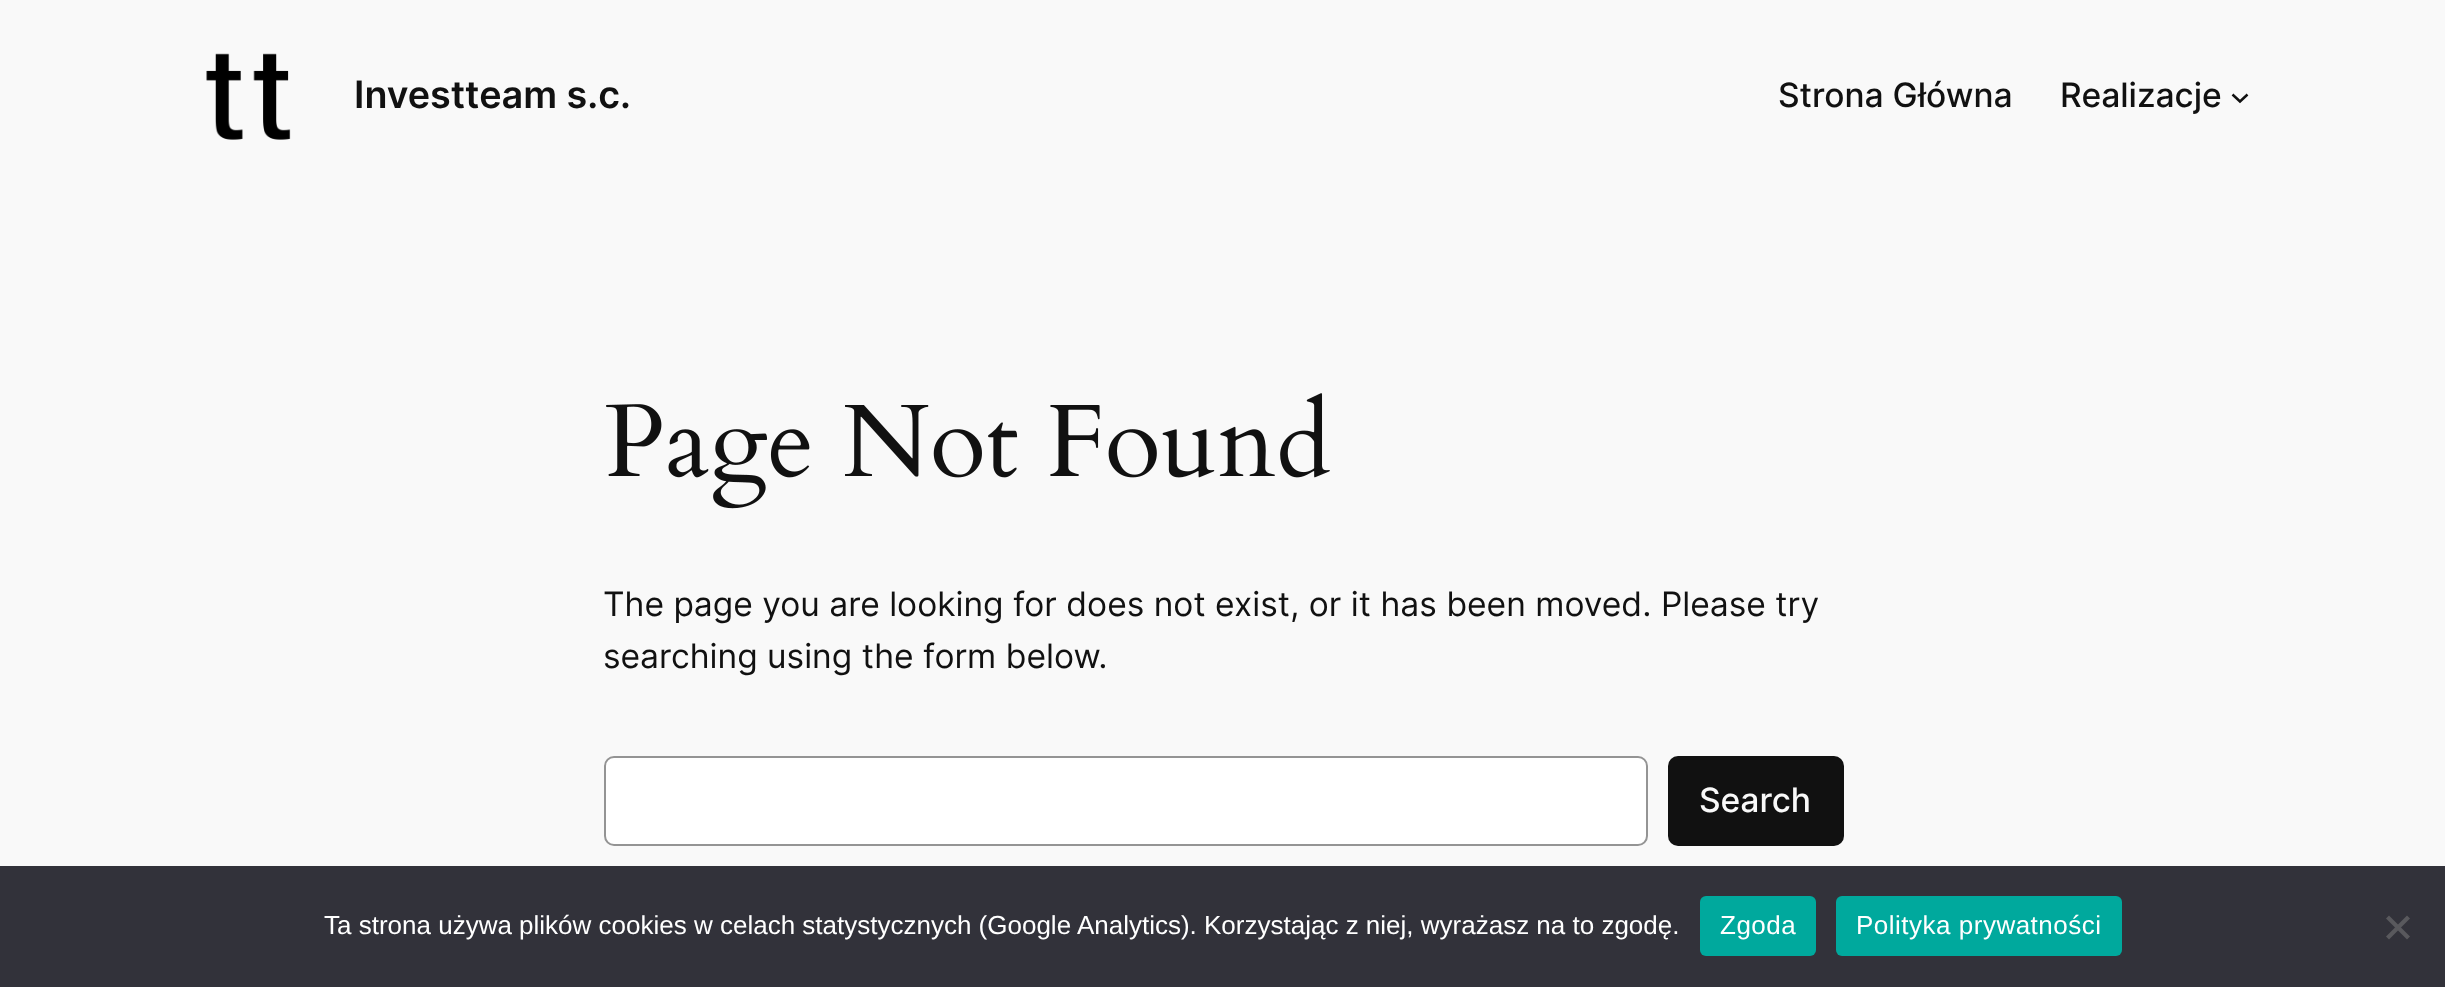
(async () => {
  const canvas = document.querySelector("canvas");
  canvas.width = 2445;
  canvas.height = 987;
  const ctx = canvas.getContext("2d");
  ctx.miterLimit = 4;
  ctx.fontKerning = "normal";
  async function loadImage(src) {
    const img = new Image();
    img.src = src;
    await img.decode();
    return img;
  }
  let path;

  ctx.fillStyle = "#f9f9f9";
  ctx.fillRect(0, 0, 2445, 987);
  ctx.drawImage(await loadImage("img/1.png"), 206, 53, 85, 87);
  path = new Path2D("M2232.5 94.5L2240 101.5L2247.5 94.5");
  ctx.strokeStyle = "#111111";
  ctx.lineWidth = 2.5;
  ctx.stroke(path);
  ctx.drawImage(await loadImage("img/2.png"), 606, 393, 724, 116);
  ctx.fillStyle = "#ffffff";
  ctx.beginPath();
  ctx.roundRect(605, 757, 1042, 88, 9);
  ctx.fill();
  ctx.strokeStyle = "#949494";
  ctx.lineWidth = 2;
  ctx.stroke();
  ctx.fillStyle = "#111111";
  ctx.beginPath();
  ctx.roundRect(1668, 756, 176, 90, 10);
  ctx.fill();
  ctx.fillStyle = "#32323a";
  ctx.fillRect(0, 866, 2445, 121);
  ctx.fillStyle = "#00a99d";
  ctx.beginPath();
  ctx.roundRect(1700, 896, 116, 60, 6);
  ctx.fill();
  ctx.beginPath();
  ctx.roundRect(1836, 896, 286, 60, 6);
  ctx.fill();
  ctx.fillStyle = "#59595d";
  path = new Path2D("M2407 915.5L2410 918.5L2389 939.5L2386 936.5Z");
  ctx.fill(path);
  path = new Path2D("M2386 918.5L2389 915.5L2410 936.5L2407 939.5Z");
  ctx.fill(path);
  ctx.font = "600 37.75px Inter";
  ctx.fillStyle = "#111111";
  ctx.fillText("Investteam s.c.", 354, 108);
  ctx.font = "500 33.6px Inter";
  ctx.fillText("Strona Główna", 1778, 107);
  ctx.fillText("Realizacje", 2060, 107);
  ctx.font = "33.6px Inter";
  ctx.fillText("The page you are looking for does not exist, or it has been moved. Please try", 603, 616);
  ctx.fillText("searching using the form below.", 603, 668);
  ctx.font = "500 33.6px Inter";
  ctx.fillStyle = "#f9f9f9";
  ctx.fillText("Search", 1699, 812);
  ctx.font = "26px Liberation Sans";
  ctx.fillStyle = "#ffffff";
  ctx.fillText("Ta strona używa plików cookies w celach statystycznych (Google Analytics). Korzystając z niej, wyrażasz na to zgodę.", 324, 934);
  ctx.letterSpacing = "0.5px";
  ctx.fillText("Zgoda", 1720, 934);
  ctx.fillText("Polityka prywatności", 1856, 934);
})();
